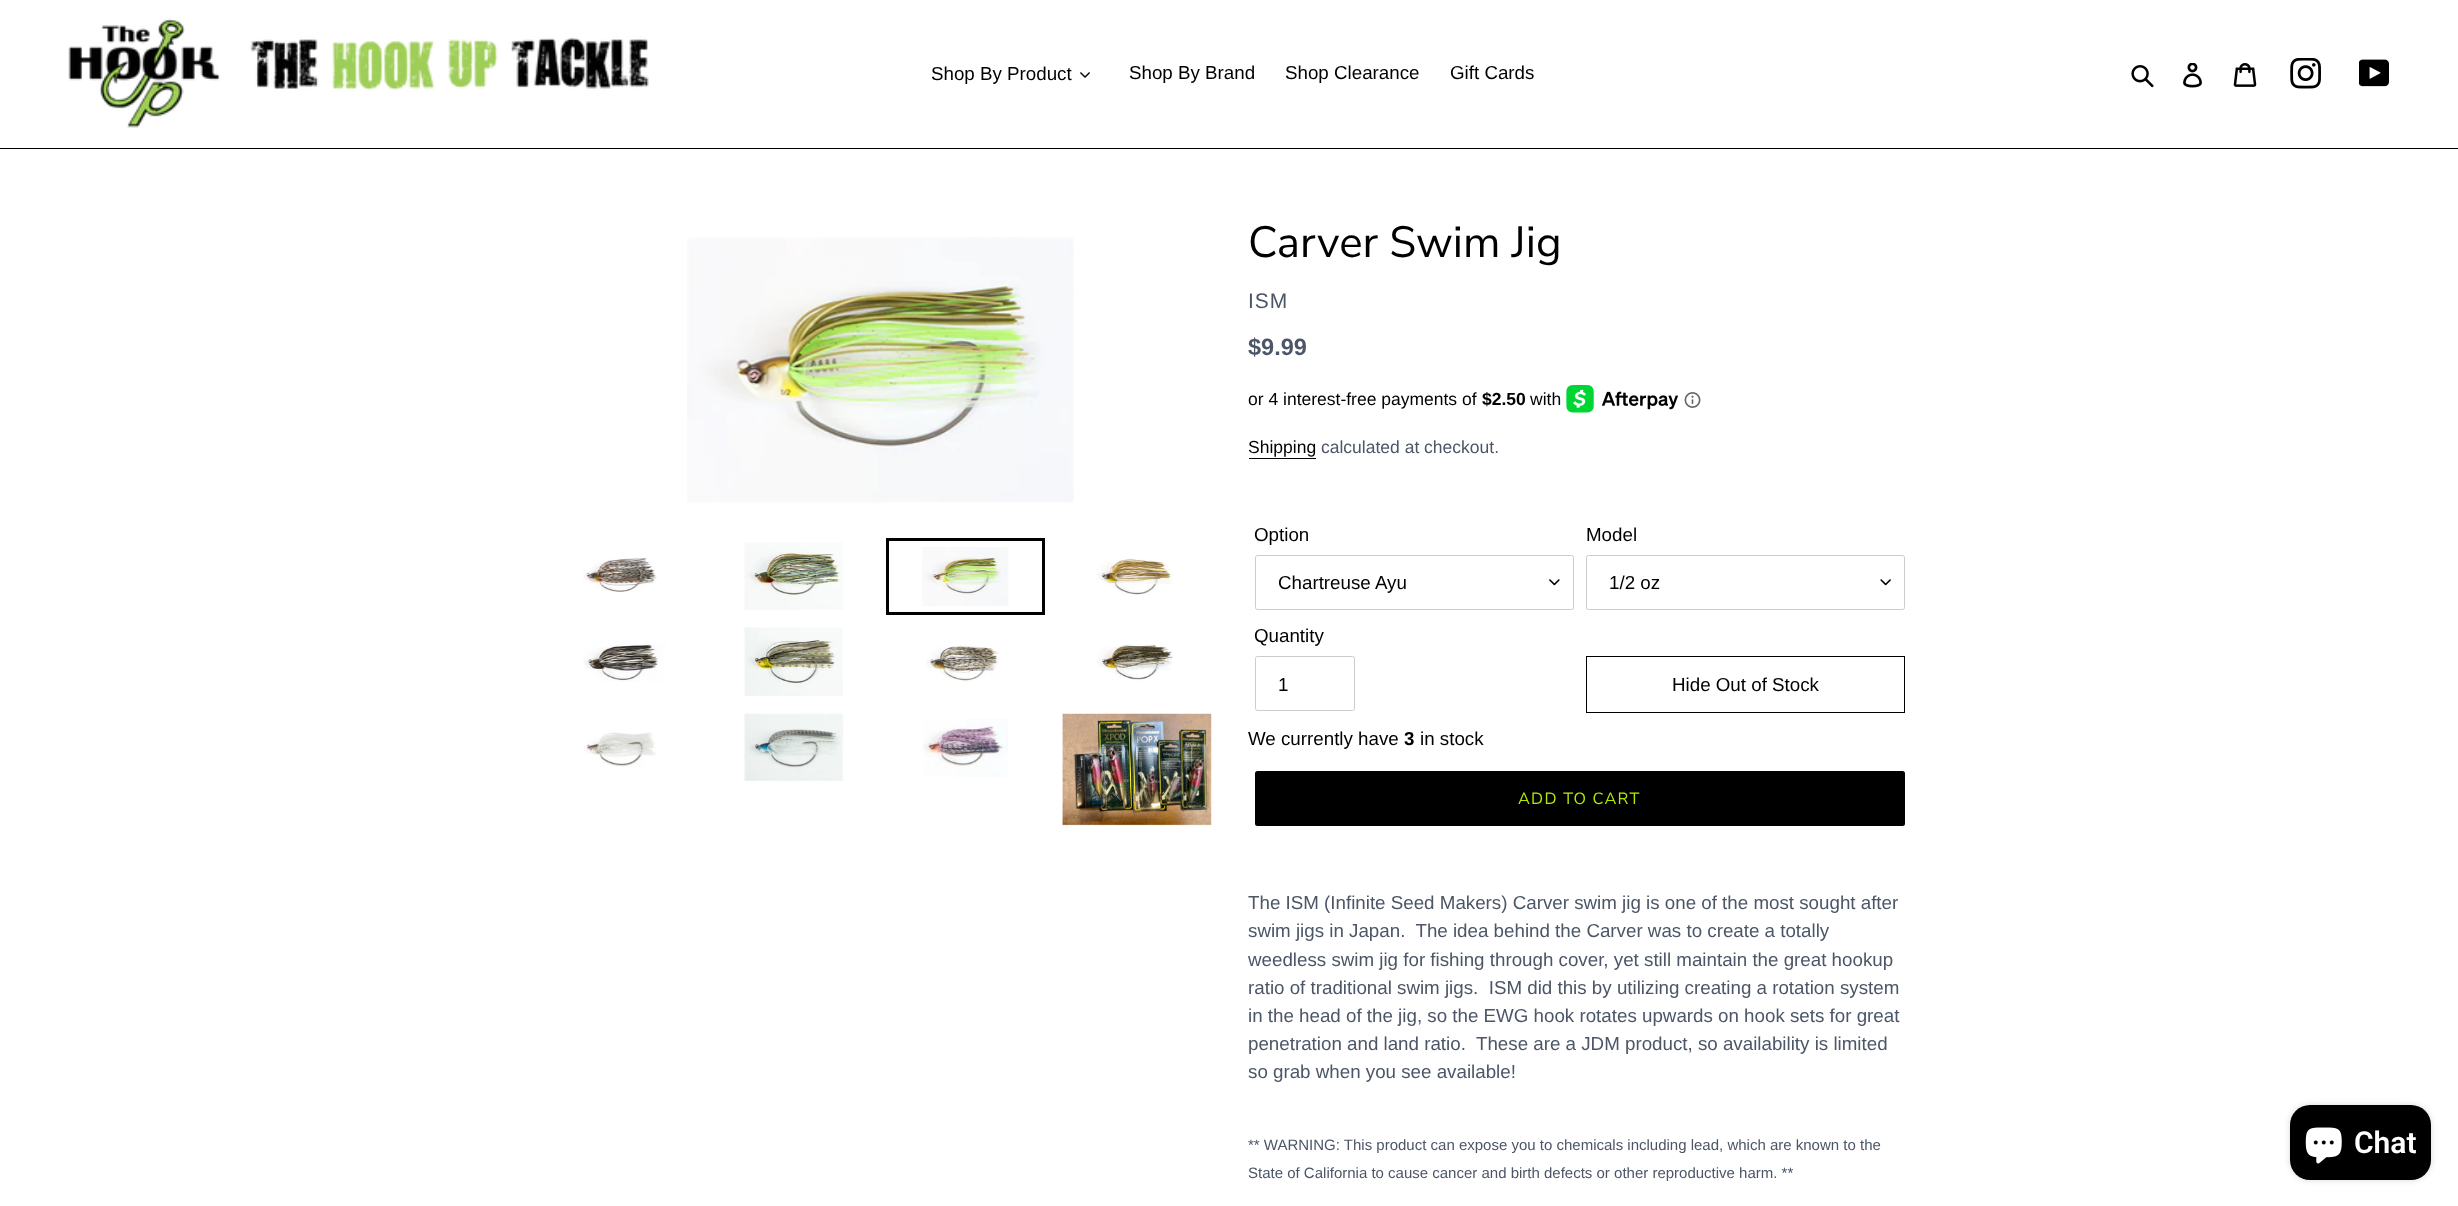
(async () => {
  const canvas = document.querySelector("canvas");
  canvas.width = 2458;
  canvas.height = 1206;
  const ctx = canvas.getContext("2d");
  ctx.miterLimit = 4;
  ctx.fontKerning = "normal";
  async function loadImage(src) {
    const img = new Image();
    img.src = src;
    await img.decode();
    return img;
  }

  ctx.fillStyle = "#ffffff";
  ctx.fillRect(0, 0, 2458, 1206);
  ctx.fillStyle = "#000000";
  ctx.fillRect(0, 148, 2458, 1);
  ctx.drawImage(await loadImage("img/1.png"), 68, 19, 581, 109);
  ctx.drawImage(await loadImage("img/2.png"), 1080, 72, 10, 6);
  ctx.drawImage(await loadImage("img/3.png"), 2131, 65, 23, 23);
  ctx.drawImage(await loadImage("img/4.png"), 2183, 63, 19, 25);
  ctx.drawImage(await loadImage("img/5.png"), 2233, 63, 24, 24);
  ctx.drawImage(await loadImage("img/6.png"), 2290, 58, 31, 31);
  ctx.drawImage(await loadImage("img/7.png"), 2359, 59, 30, 28);
  ctx.drawImage(await loadImage("img/8.png"), 687, 237, 387, 266);
  ctx.drawImage(await loadImage("img/9.png"), 583, 558, 74, 34);
  ctx.drawImage(await loadImage("img/10.png"), 744, 542, 99, 68);
  ctx.strokeStyle = "#000000";
  ctx.lineWidth = 3;
  ctx.strokeRect(887.5, 539.5, 156, 74);
  ctx.drawImage(await loadImage("img/11.png"), 922, 547, 87, 59);
  ctx.drawImage(await loadImage("img/12.png"), 1097, 558, 76, 38);
  ctx.drawImage(await loadImage("img/13.png"), 583, 643, 82, 39);
  ctx.drawImage(await loadImage("img/14.png"), 744, 627, 99, 69);
  ctx.drawImage(await loadImage("img/15.png"), 926, 645, 73, 36);
  ctx.drawImage(await loadImage("img/16.png"), 1097, 644, 76, 37);
  ctx.drawImage(await loadImage("img/17.png"), 584, 732, 72, 35);
  ctx.drawImage(await loadImage("img/18.png"), 744, 713, 100, 68);
  ctx.drawImage(await loadImage("img/19.png"), 923, 719, 85, 58);
  ctx.drawImage(await loadImage("img/20.png"), 1062, 713, 150, 113);
  ctx.drawImage(await loadImage("img/21.png"), 1566, 385, 112, 28);
  ctx.drawImage(await loadImage("img/22.png"), 1684, 392, 17, 16);
  ctx.fillRect(1249, 458, 67, 1);
  ctx.drawImage(await loadImage("img/23.png"), 1549, 579, 11, 7);
  ctx.beginPath();
  ctx.roundRect(1255.5, 555.5, 318, 54, 2);
  ctx.strokeStyle = "#cccccc";
  ctx.lineWidth = 1;
  ctx.stroke();
  ctx.drawImage(await loadImage("img/24.png"), 1880, 579, 11, 7);
  ctx.beginPath();
  ctx.roundRect(1586.5, 555.5, 318, 54, 2);
  ctx.stroke();
  ctx.beginPath();
  ctx.roundRect(1255.5, 656.5, 99, 54, 2);
  ctx.stroke();
  ctx.strokeStyle = "#000000";
  ctx.strokeRect(1586.5, 656.5, 318, 56);
  ctx.beginPath();
  ctx.roundRect(1255, 771, 650, 55, 2.5);
  ctx.fill();
  ctx.fillStyle = "rgba(0, 0, 0, 0.15)";
  ctx.filter = "blur(3px)";
  ctx.beginPath();
  ctx.roundRect(2290, 1105, 141, 75, 20);
  ctx.fill();
  ctx.filter = "none";
  ctx.fillStyle = "#000000";
  ctx.beginPath();
  ctx.roundRect(2290, 1105, 141, 75, 20);
  ctx.fill();
  ctx.drawImage(await loadImage("img/25.png"), 2305, 1127, 37, 37);
  ctx.font = "18.75px Liberation Sans";
  for (const [text, x, y] of [
    ["Shop By Product", 931, 80],
    ["Shop By Brand", 1129, 79],
    ["Shop Clearance", 1285, 79],
    ["Gift Cards", 1450, 79],
  ]) {
    ctx.fillText(text, x, y);
  }
  ctx.font = "43.75px Nunito Sans";
  ctx.fillText("Carver Swim Jig", 1248, 257);
  ctx.letterSpacing = "1px";
  ctx.font = "21px Liberation Sans";
  ctx.fillStyle = "#4c5667";
  ctx.fillText("ISM", 1248, 308);
  ctx.letterSpacing = "0px";
  ctx.font = "bold 23.5px Liberation Sans";
  ctx.fillText("$9.99", 1248, 355);
  ctx.font = "17.5px Liberation Sans";
  ctx.fillStyle = "#000000";
  ctx.fillText("or 4 interest-free payments of", 1248, 405);
  ctx.font = "bold 17.5px Liberation Sans";
  ctx.fillText("$2.50", 1482, 405);
  ctx.font = "17.5px Liberation Sans";
  ctx.fillText("with", 1530, 405);
  ctx.fillText("Shipping", 1248, 453);
  ctx.fillStyle = "#4c5667";
  ctx.fillText("calculated at checkout.", 1321, 453);
  ctx.font = "18.75px Liberation Sans";
  ctx.fillStyle = "#000000";
  for (const [text, x, y] of [
    ["Option", 1254, 541],
    ["Chartreuse Ayu", 1278, 589],
    ["Model", 1586, 541],
    ["1/2 oz", 1609, 589],
    ["Quantity", 1254, 642],
    ["1", 1278, 691],
    ["Hide Out of Stock", 1672, 691],
    ["We currently have", 1248, 745],
  ]) {
    ctx.fillText(text, x, y);
  }
  ctx.font = "bold 18.75px Liberation Sans";
  ctx.fillText("3", 1404, 745);
  ctx.font = "18.75px Liberation Sans";
  ctx.fillText("in stock", 1420, 745);
  ctx.letterSpacing = "1.25px";
  ctx.font = "16.25px Nunito Sans";
  ctx.fillStyle = "#b0ea06";
  ctx.fillText("ADD TO CART", 1518, 804);
  ctx.letterSpacing = "0px";
  ctx.font = "18.75px Liberation Sans";
  ctx.fillStyle = "#4c5667";
  for (const [text, x, y] of [
    ["The ISM (Infinite Seed Makers) Carver swim jig is one of the most sought after", 1248, 909],
    ["swim jigs in Japan.  The idea behind the Carver was to create a totally", 1248, 937],
    ["weedless swim jig for fishing through cover, yet still maintain the great hookup", 1248, 966],
    ["ratio of traditional swim jigs.  ISM did this by utilizing creating a rotation system", 1248, 994],
    ["in the head of the jig, so the EWG hook rotates upwards on hook sets for great", 1248, 1022],
    ["penetration and land ratio.  These are a JDM product, so availability is limited", 1248, 1050],
    ["so grab when you see available!", 1248, 1078],
  ]) {
    ctx.fillText(text, x, y);
  }
  ctx.font = "15px Liberation Sans";
  ctx.fillText("** WARNING: This product can expose you to chemicals including lead, which are known to the", 1248, 1150);
  ctx.fillText("State of California to cause cancer and birth defects or other reproductive harm. **", 1248, 1178);
  ctx.font = "600 30px Roboto";
  ctx.fillStyle = "#ffffff";
  ctx.fillText("Chat", 2354, 1153);
})();
